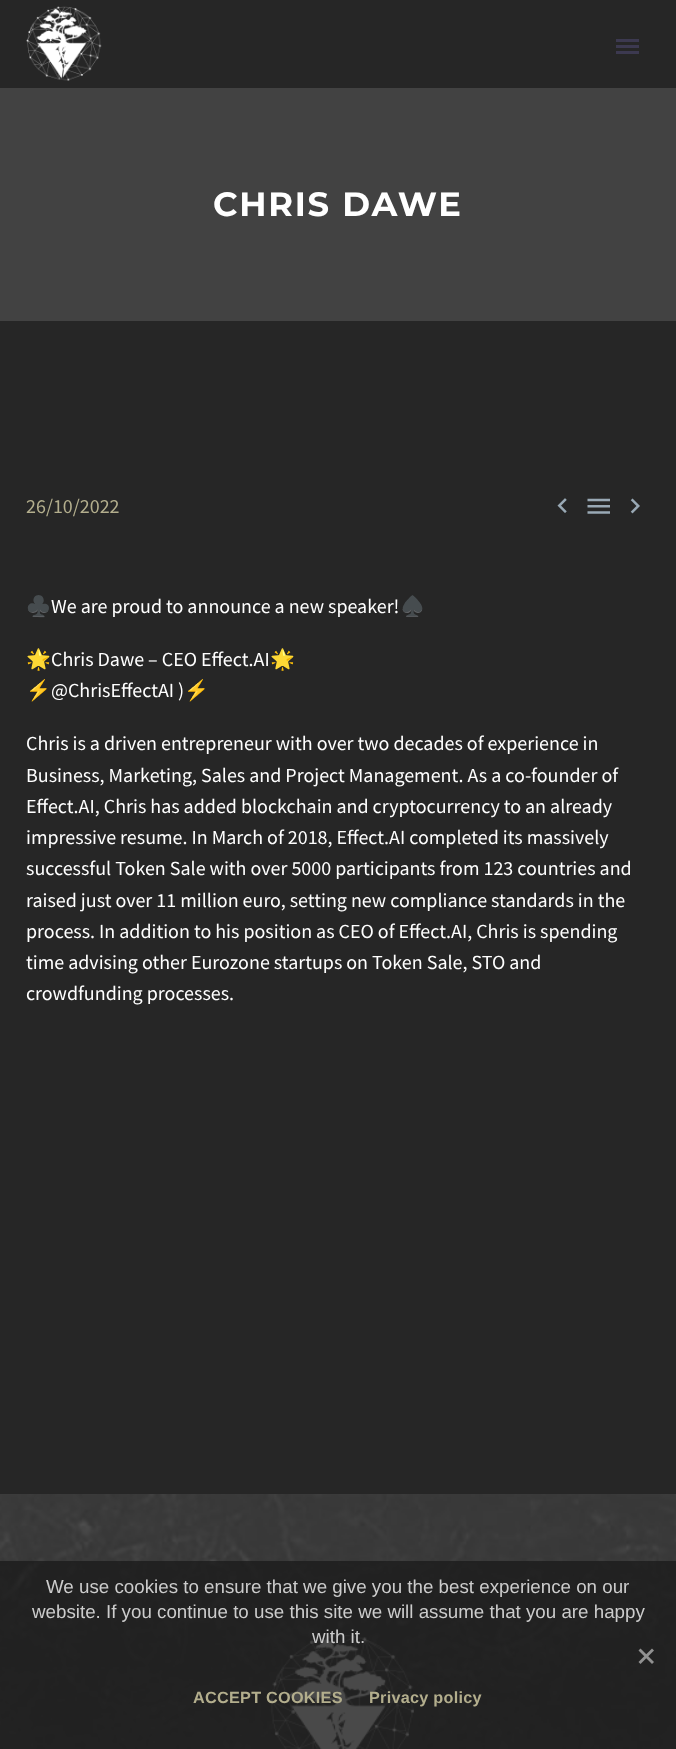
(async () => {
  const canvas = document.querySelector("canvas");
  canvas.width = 676;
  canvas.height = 1749;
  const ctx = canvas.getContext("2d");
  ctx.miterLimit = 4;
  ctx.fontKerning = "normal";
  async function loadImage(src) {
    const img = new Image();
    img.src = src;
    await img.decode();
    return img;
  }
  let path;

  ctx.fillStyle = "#262626";
  ctx.fillRect(0, 0, 676, 1749);
  ctx.drawImage(await loadImage("img/1.png"), 26, 6, 76, 75);
  for (const [x, y, w, h, color] of [
    [616, 39, 23, 3, "#3c3950"],
    [616, 45, 23, 3, "#3c3950"],
    [616, 51, 23, 3, "#3c3950"],
    [0, 88, 676, 233, "#424242"],
  ]) {
    ctx.fillStyle = color;
    ctx.fillRect(x, y, w, h);
  }
  ctx.drawImage(await loadImage("img/2.png"), 557, 498, 10, 15);
  ctx.drawImage(await loadImage("img/3.png"), 587, 498, 23, 16);
  ctx.drawImage(await loadImage("img/4.png"), 630, 498, 10, 16);
  ctx.drawImage(await loadImage("img/5.png"), 0, 1494, 676, 255);
  ctx.drawImage(await loadImage("img/6.png"), 269, 1635, 145, 114);
  ctx.fillStyle = "rgba(28, 28, 28, 0.8)";
  ctx.fillRect(0, 1561, 676, 188);
  ctx.fillStyle = "#919191";
  path = new Path2D("M652 1648.5L654 1650.5L640.5 1664L638.5 1662Z");
  ctx.fill(path);
  path = new Path2D("M638.5 1650.5L640.5 1648.5L654 1662L652 1664Z");
  ctx.fill(path);
  ctx.letterSpacing = "1.75px";
  ctx.font = "bold 33.75px Montserrat";
  ctx.fillStyle = "#ffffff";
  ctx.fillText("CHRIS DAWE", 213, 216);
  ctx.letterSpacing = "0px";
  ctx.font = "20px Source Sans Pro";
  ctx.fillStyle = "#b3ae8d";
  ctx.fillText("26/10/2022", 26, 513);
  ctx.font = "20px Noto Color Emoji";
  ctx.fillStyle = "#ffffff";
  ctx.fillText("♣️", 26, 613);
  ctx.font = "20px Source Sans Pro";
  ctx.fillText("We are proud to announce a new speaker!", 51, 613);
  ctx.font = "20px Noto Color Emoji";
  ctx.fillText("♠️", 400, 613);
  ctx.fillText("🌟", 26, 666);
  ctx.font = "20px Source Sans Pro";
  ctx.fillText("Chris Dawe – CEO Effect.AI", 51, 666);
  ctx.font = "20px Noto Color Emoji";
  ctx.fillText("🌟", 270, 666);
  ctx.fillText("⚡️", 26, 697);
  ctx.font = "20px Source Sans Pro";
  ctx.fillText("@ChrisEffectAI )", 51, 697);
  ctx.font = "20px Noto Color Emoji";
  ctx.fillText("⚡️", 184, 697);
  ctx.font = "20px Source Sans Pro";
  for (const [text, x, y] of [
    ["Chris is a driven entrepreneur with over two decades of experience in", 26, 750],
    ["Business, Marketing, Sales and Project Management. As a co-founder of", 26, 782],
    ["Effect.AI, Chris has added blockchain and cryptocurrency to an already", 26, 813],
    ["impressive resume. In March of 2018, Effect.AI completed its massively", 26, 844],
    ["successful Token Sale with over 5000 participants from 123 countries and", 26, 875],
    ["raised just over 11 million euro, setting new compliance standards in the", 26, 907],
    ["process. In addition to his position as CEO of Effect.AI, Chris is spending", 26, 938],
    ["time advising other Eurozone startups on Token Sale, STO and", 26, 969],
    ["crowdfunding processes.", 26, 1000],
  ]) {
    ctx.fillText(text, x, y);
  }
  ctx.font = "18.75px Liberation Sans";
  ctx.fillStyle = "#cccccc";
  for (const [text, x, y] of [
    ["We use cookies to ensure that we give you the best experience on our", 46, 1593],
    ["website. If you continue to use this site we will assume that you are happy", 32, 1618],
    ["with it.", 312, 1643],
  ]) {
    ctx.fillText(text, x, y);
  }
  ctx.letterSpacing = "0.25px";
  ctx.font = "bold 16.25px Liberation Sans";
  ctx.fillStyle = "#b3ae8d";
  ctx.fillText("ACCEPT COOKIES", 193, 1703);
  ctx.fillText("Privacy policy", 369, 1703);
})();
